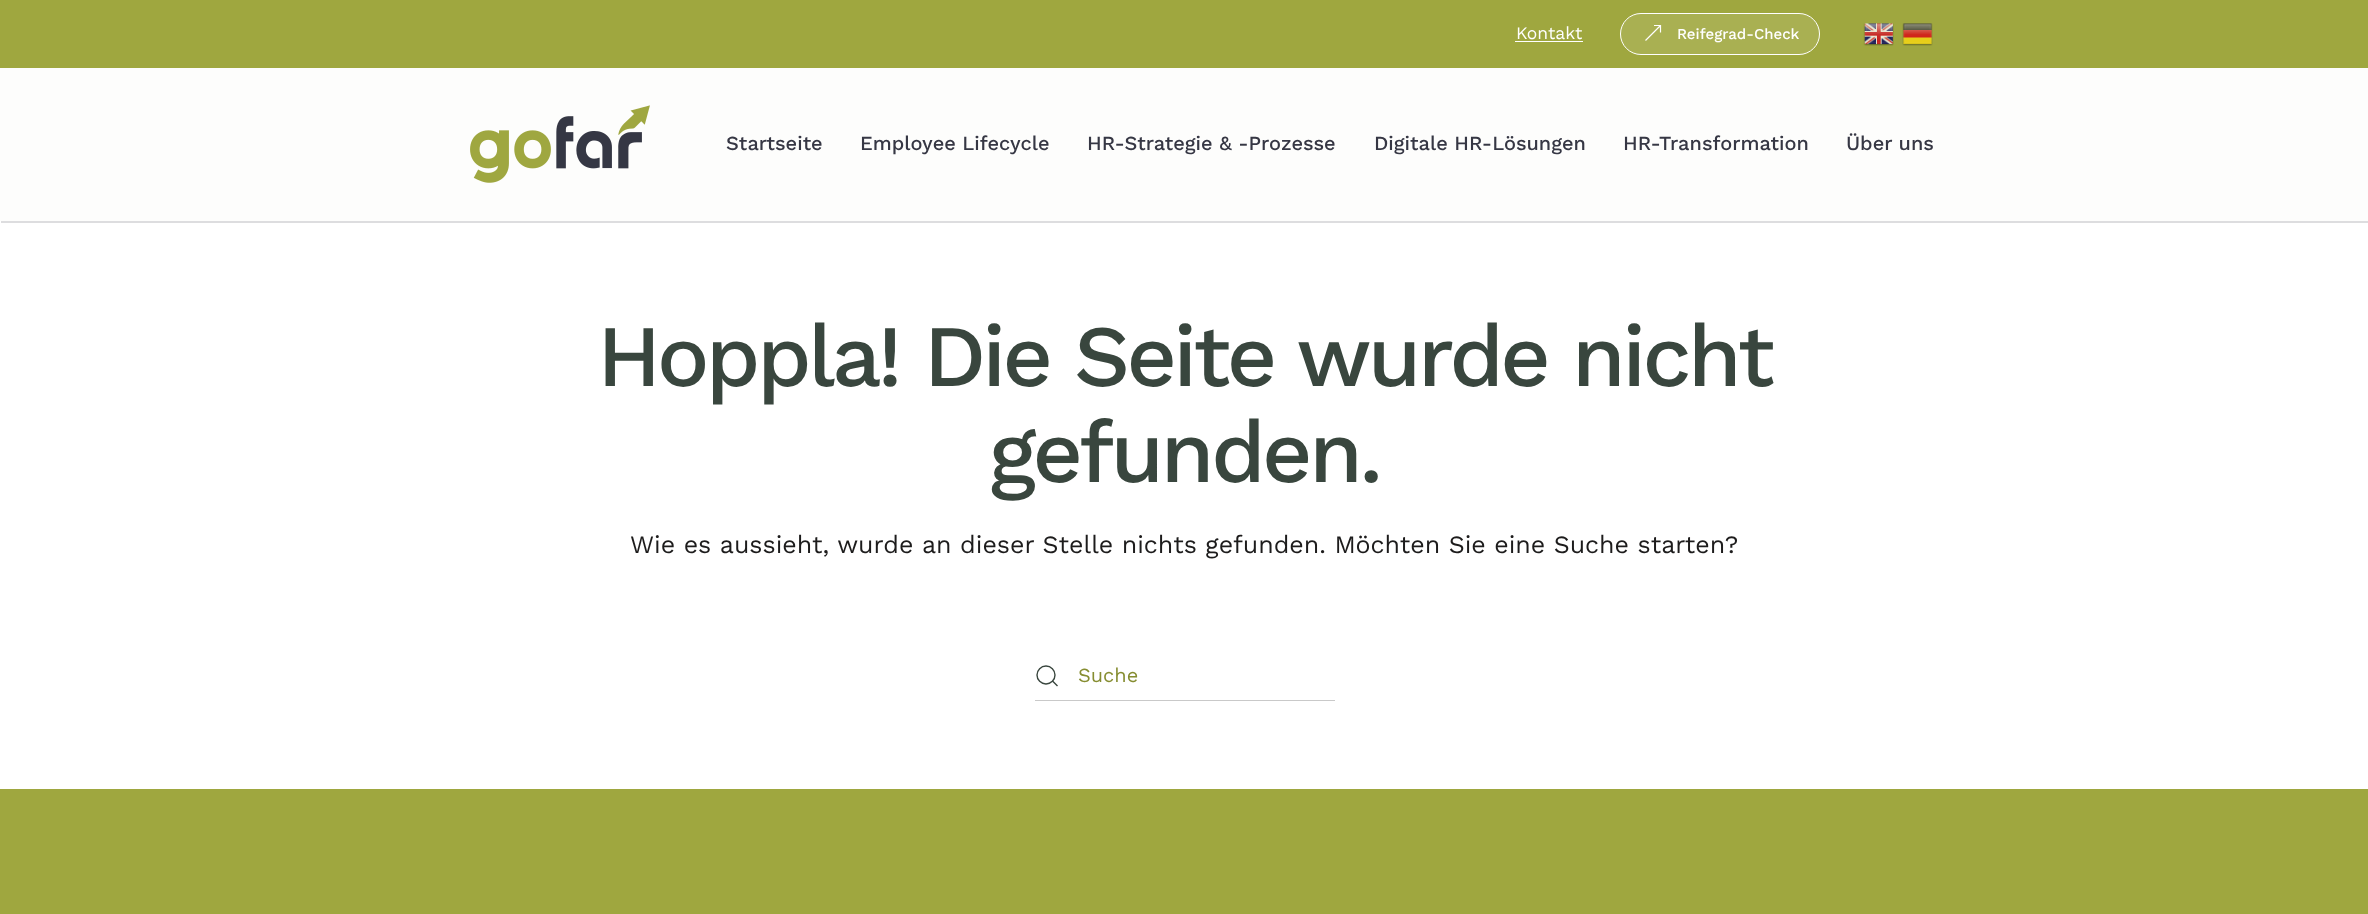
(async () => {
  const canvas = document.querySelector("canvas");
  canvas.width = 2368;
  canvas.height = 914;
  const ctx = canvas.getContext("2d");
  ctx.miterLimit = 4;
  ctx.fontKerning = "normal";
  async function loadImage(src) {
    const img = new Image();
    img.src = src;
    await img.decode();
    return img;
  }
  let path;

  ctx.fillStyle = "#ffffff";
  ctx.fillRect(0, 0, 2368, 914);
  ctx.fillStyle = "#9fa73f";
  ctx.fillRect(0, 0, 2368, 68);
  ctx.fillStyle = "#ffffff";
  ctx.fillRect(1515, 41, 68, 1);
  ctx.fillStyle = "#a9b052";
  ctx.beginPath();
  ctx.roundRect(1620.5, 13.5, 199, 41, 20.5);
  ctx.fill();
  ctx.strokeStyle = "#ffffff";
  ctx.stroke();
  path = new Path2D("M1645.5 40.5L1660.5 25.5M1660.5 32.5V25.5H1654");
  ctx.lineWidth = 1.2;
  ctx.stroke(path);
  ctx.drawImage(await loadImage("img/1.png"), 1863, 23, 31, 23);
  ctx.drawImage(await loadImage("img/2.png"), 1902, 23, 31, 23);
  ctx.fillStyle = "#dddddf";
  path = new Path2D("M1 221V223H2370V69H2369V221Z");
  ctx.fill(path);
  ctx.fillStyle = "#fdfdfc";
  ctx.fillRect(0, 68, 2368, 153);
  ctx.drawImage(await loadImage("img/3.png"), 470, 105, 180, 78);
  ctx.beginPath();
  ctx.arc(1046, 675, 9, 0, Math.PI * 2);
  ctx.strokeStyle = "#39463e";
  ctx.lineWidth = 1.4;
  ctx.stroke();
  path = new Path2D("M1052.5 681L1057.5 686Z");
  ctx.stroke(path);
  ctx.fillStyle = "#c9c9c9";
  ctx.fillRect(1035, 700, 300, 1);
  ctx.fillStyle = "#9fa73f";
  ctx.fillRect(0, 789, 2368, 125);
  ctx.font = "17.5px Work Sans";
  ctx.fillStyle = "#ffffff";
  ctx.fillText("Kontakt", 1516, 39);
  ctx.font = "500 15px Work Sans";
  ctx.fillText("Reifegrad-Check", 1677, 39);
  ctx.font = "500 20px Work Sans";
  ctx.fillStyle = "#363744";
  for (const [text, x, y] of [
    ["Startseite", 726, 150],
    ["Employee Lifecycle", 860, 150],
    ["HR-Strategie & -Prozesse", 1087, 150],
    ["Digitale HR-Lösungen", 1374, 150],
    ["HR-Transformation", 1623, 150],
    ["Über uns", 1846, 150],
  ]) {
    ctx.fillText(text, x, y);
  }
  ctx.letterSpacing = "-3.75px";
  ctx.font = "500 87.5px Work Sans";
  ctx.fillStyle = "#39463e";
  ctx.fillText("Hoppla! Die Seite wurde nicht", 597, 386);
  ctx.fillText("gefunden.", 989, 482);
  ctx.letterSpacing = "0px";
  ctx.font = "25px Work Sans";
  ctx.fillStyle = "#1d1c1c";
  ctx.fillText("Wie es aussieht, wurde an dieser Stelle nichts gefunden. Möchten Sie eine Suche starten?", 630, 553);
  ctx.font = "20px Work Sans";
  ctx.fillStyle = "#868d31";
  ctx.fillText("Suche", 1078, 682);
})();
